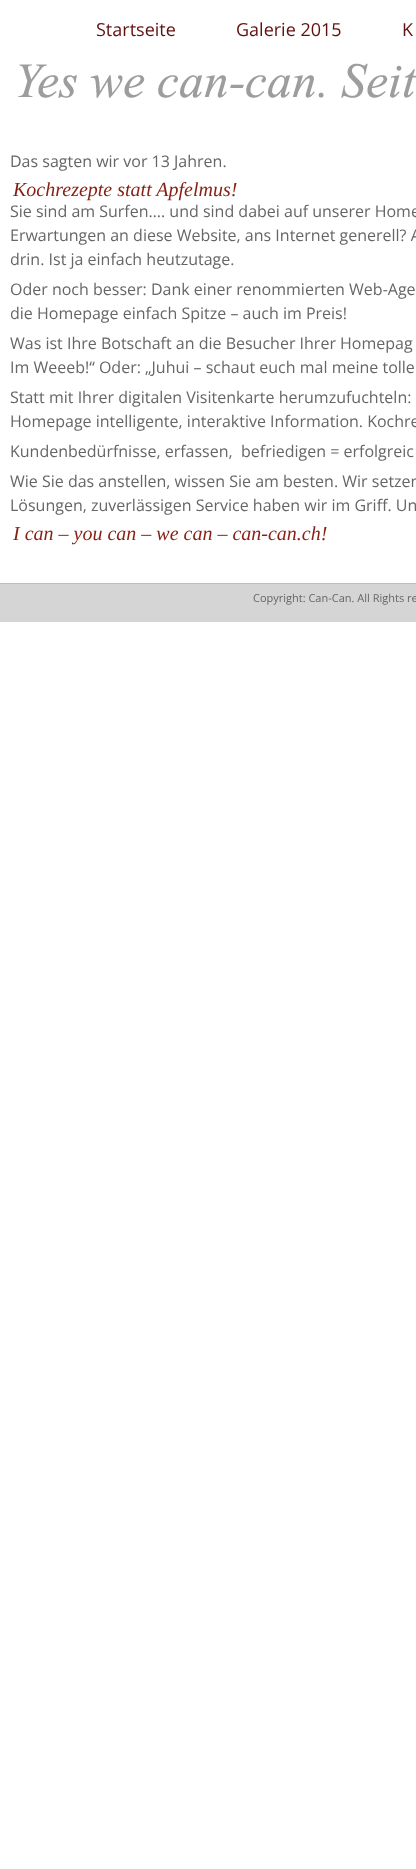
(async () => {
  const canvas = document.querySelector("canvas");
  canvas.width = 416;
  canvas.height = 1869;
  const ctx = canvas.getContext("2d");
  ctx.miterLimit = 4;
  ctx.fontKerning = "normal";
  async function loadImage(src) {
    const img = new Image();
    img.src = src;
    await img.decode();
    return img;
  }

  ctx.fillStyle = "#ffffff";
  ctx.fillRect(0, 0, 416, 1869);
  ctx.drawImage(await loadImage("img/1.png"), 18, 63, 398, 35);
  ctx.fillStyle = "#d5d5d5";
  ctx.fillRect(0, 584, 416, 38);
  ctx.fillStyle = "#bdbdbd";
  ctx.fillRect(0, 583, 416, 1);
  ctx.font = "18px Open Sans";
  ctx.fillStyle = "#601010";
  for (const [text, x, y] of [
    ["Startseite", 96, 36],
    ["Galerie 2015", 236, 36],
    ["K", 402, 36],
  ]) {
    ctx.fillText(text, x, y);
  }
  ctx.font = "16px Open Sans";
  ctx.fillStyle = "#666666";
  ctx.fillText("Das sagten wir vor 13 Jahren.", 10, 167);
  ctx.font = "italic 20px Liberation Serif";
  ctx.fillStyle = "#871f12";
  ctx.fillText("Kochrezepte statt Apfelmus!", 13, 196);
  ctx.font = "16px Open Sans";
  ctx.fillStyle = "#666666";
  for (const [text, x, y] of [
    ["Sie sind am Surfen…. und sind dabei auf unserer Home", 10, 217],
    ["Erwartungen an diese Website, ans Internet generell? A", 10, 241],
    ["drin. Ist ja einfach heutzutage.", 10, 265],
    ["Oder noch besser: Dank einer renommierten Web-Age", 10, 295],
    ["die Homepage einfach Spitze – auch im Preis!", 10, 319],
    ["Was ist Ihre Botschaft an die Besucher Ihrer Homepag", 10, 349],
    ["Im Weeeb!“ Oder: „Juhui – schaut euch mal meine tolle", 10, 373],
    ["Statt mit Ihrer digitalen Visitenkarte herumzufuchteln:", 10, 403],
    ["Homepage intelligente, interaktive Information. Kochre", 10, 427],
    ["Kundenbedürfnisse, erfassen,  befriedigen = erfolgreic", 10, 457],
    ["Wie Sie das anstellen, wissen Sie am besten. Wir setzen", 10, 487],
    ["Lösungen, zuverlässigen Service haben wir im Griff. Un", 10, 511],
  ]) {
    ctx.fillText(text, x, y);
  }
  ctx.font = "italic 20px Liberation Serif";
  ctx.fillStyle = "#871f12";
  ctx.fillText("I can – you can – we can – can-can.ch!", 13, 540);
  ctx.font = "11px Open Sans";
  ctx.fillStyle = "#666666";
  ctx.fillText("Copyright: Can-Can. All Rights re", 253, 602);
})();
